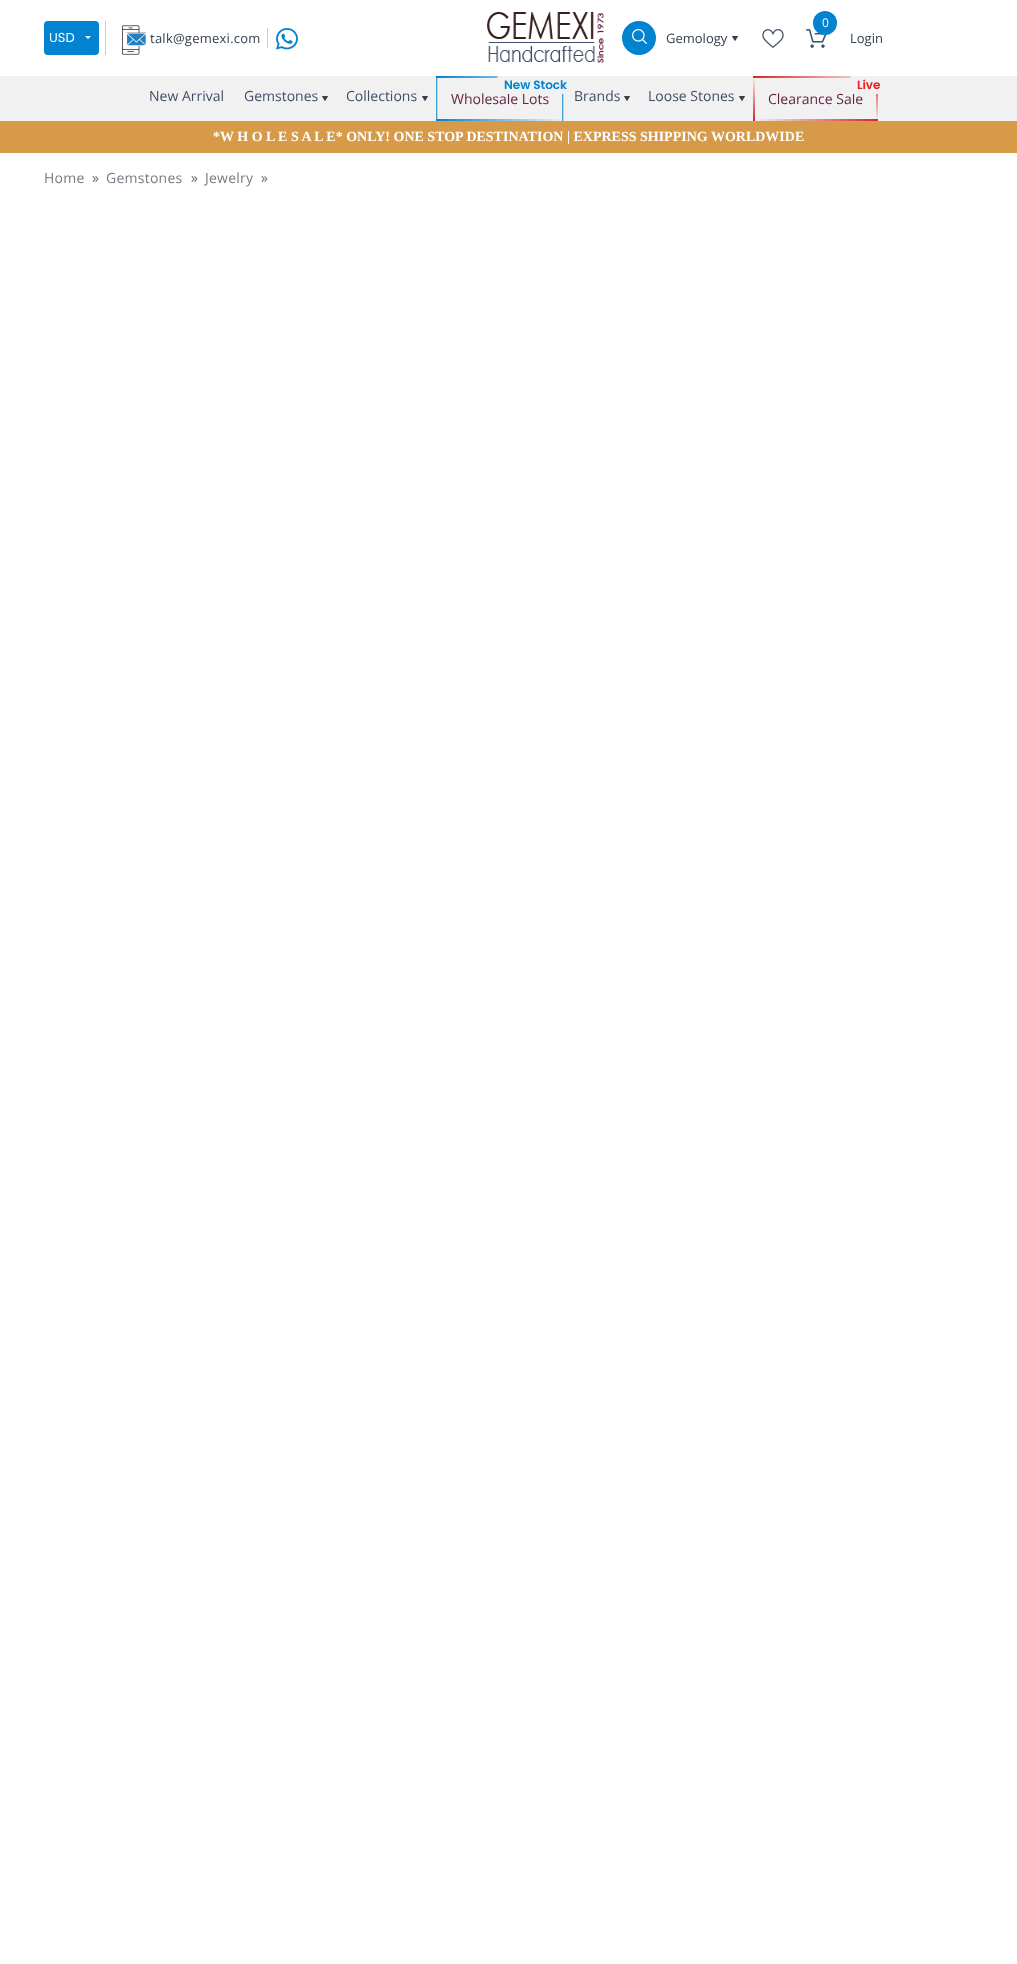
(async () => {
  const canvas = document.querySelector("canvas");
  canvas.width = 1017;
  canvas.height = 1964;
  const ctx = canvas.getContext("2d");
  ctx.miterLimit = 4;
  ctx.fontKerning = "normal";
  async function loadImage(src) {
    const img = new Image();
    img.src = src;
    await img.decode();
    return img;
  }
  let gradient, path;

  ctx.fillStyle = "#ffffff";
  ctx.fillRect(0, 0, 1017, 1964);
  ctx.fillStyle = "#cccccc";
  ctx.fillRect(105, 21, 1, 34);
  ctx.fillStyle = "#0183cf";
  ctx.beginPath();
  ctx.roundRect(44, 21, 55, 34, 4);
  ctx.fill();
  ctx.fillStyle = "#ffffff";
  path = new Path2D("M85 36H91L88 39Z");
  ctx.fill(path);
  ctx.drawImage(await loadImage("img/1.png"), 122, 25, 25, 30);
  ctx.fillStyle = "#cccccc";
  ctx.fillRect(267, 28, 1, 20);
  ctx.drawImage(await loadImage("img/2.png"), 276, 28, 22, 22);
  ctx.drawImage(await loadImage("img/3.png"), 487, 12, 117, 52);
  ctx.fillStyle = "#0183cf";
  ctx.beginPath();
  ctx.arc(639, 38, 17, 0, Math.PI * 2);
  ctx.fill();
  ctx.drawImage(await loadImage("img/4.png"), 632, 29, 15, 15);
  ctx.drawImage(await loadImage("img/5.png"), 806, 29, 21, 19);
  ctx.beginPath();
  ctx.arc(825, 23, 12, 0, Math.PI * 2);
  ctx.fill();
  ctx.drawImage(await loadImage("img/6.png"), 732, 36, 6, 5);
  ctx.drawImage(await loadImage("img/7.png"), 762, 29, 22, 19);
  ctx.fillStyle = "#f1f1f1";
  ctx.fillRect(0, 76, 1017, 45);
  ctx.drawImage(await loadImage("img/8.png"), 322, 96, 6, 5);
  ctx.drawImage(await loadImage("img/8.png"), 422, 96, 6, 5);
  gradient = ctx.createLinearGradient(564, 77, 436, 77);
  gradient.addColorStop(0, "#f1f1f1");
  gradient.addColorStop(1, "#0183cf");
  ctx.fillStyle = gradient;
  ctx.fillRect(436, 76, 63, 2);
  gradient = ctx.createLinearGradient(564, 99, 562, 99);
  gradient.addColorStop(0, "rgba(1, 131, 207, 0)");
  gradient.addColorStop(1, "#0183cf");
  ctx.fillStyle = gradient;
  ctx.fillRect(562, 94, 2, 27);
  gradient = ctx.createLinearGradient(564, 120, 436, 120);
  gradient.addColorStop(0, "rgba(1, 131, 207, 0)");
  gradient.addColorStop(1, "#0183cf");
  ctx.fillStyle = gradient;
  ctx.fillRect(436, 119, 128, 2);
  gradient = ctx.createLinearGradient(438, 99, 436, 99);
  gradient.addColorStop(0, "rgba(1, 131, 207, 0)");
  gradient.addColorStop(1, "#0183cf");
  ctx.fillStyle = gradient;
  ctx.fillRect(436, 76, 2, 45);
  ctx.drawImage(await loadImage("img/8.png"), 624, 96, 6, 5);
  ctx.drawImage(await loadImage("img/8.png"), 739, 96, 6, 5);
  gradient = ctx.createLinearGradient(878, 77, 753, 77);
  gradient.addColorStop(0, "#f1f1f1");
  gradient.addColorStop(1, "#d92626");
  ctx.fillStyle = gradient;
  ctx.fillRect(753, 76, 99, 2);
  gradient = ctx.createLinearGradient(877, 121, 877, 76);
  gradient.addColorStop(0, "#f1f1f1");
  gradient.addColorStop(1, "#d92626");
  ctx.fillStyle = gradient;
  ctx.fillRect(876, 94, 2, 27);
  gradient = ctx.createLinearGradient(753, 120, 878, 120);
  gradient.addColorStop(0, "rgba(217, 38, 38, 0)");
  gradient.addColorStop(1, "#d92626");
  ctx.fillStyle = gradient;
  ctx.fillRect(753, 119, 125, 2);
  gradient = ctx.createLinearGradient(754, 76, 754, 121);
  gradient.addColorStop(0, "rgba(217, 38, 38, 0)");
  gradient.addColorStop(1, "#d92626");
  ctx.fillStyle = gradient;
  ctx.fillRect(753, 76, 2, 45);
  ctx.fillStyle = "#d69a48";
  ctx.fillRect(0, 121, 1017, 32);
  ctx.drawImage(await loadImage("img/9.png"), 92, 176, 7, 6);
  ctx.drawImage(await loadImage("img/9.png"), 191, 176, 7, 6);
  ctx.drawImage(await loadImage("img/9.png"), 261, 176, 7, 6);
  ctx.font = "13px Poppins";
  ctx.fillStyle = "#ffffff";
  ctx.fillText("USD", 49, 42);
  ctx.letterSpacing = "0.25px";
  ctx.font = "13px Open Sans";
  ctx.fillStyle = "#35404e";
  ctx.fillText("talk@gemexi.com", 150, 43);
  ctx.letterSpacing = "0px";
  ctx.font = "12px Open Sans";
  ctx.fillStyle = "#ffffff";
  ctx.fillText("0", 822, 27);
  ctx.font = "13px Open Sans";
  ctx.fillStyle = "#35404e";
  ctx.fillText("Gemology", 666, 43);
  ctx.fillText("Login", 850, 43);
  ctx.font = "14px Open Sans";
  ctx.fillStyle = "#404e68";
  for (const [text, x, y] of [
    ["New Arrival", 149, 101],
    ["Gemstones", 244, 101],
    ["Collections", 346, 101],
  ]) {
    ctx.fillText(text, x, y);
  }
  ctx.fillStyle = "#642346";
  ctx.fillText("Wholesale Lots", 451, 104);
  ctx.fillStyle = "#f1f1f1";
  ctx.beginPath();
  ctx.roundRect(497, 76, 77, 18, 2);
  ctx.fill();
  ctx.font = "600 12px Poppins";
  ctx.fillStyle = "#0183cf";
  ctx.fillText("New Stock", 504, 89);
  ctx.font = "14px Open Sans";
  ctx.fillStyle = "#404e68";
  ctx.fillText("Brands", 574, 101);
  ctx.fillText("Loose Stones", 648, 101);
  ctx.fillStyle = "#642346";
  ctx.fillText("Clearance Sale", 768, 104);
  ctx.fillStyle = "#f1f1f1";
  ctx.beginPath();
  ctx.roundRect(850, 76, 38, 18, 2);
  ctx.fill();
  ctx.font = "600 12px Poppins";
  ctx.fillStyle = "#ec1b22";
  ctx.fillText("Live", 857, 89);
  ctx.font = "bold 14px Liberation Serif";
  ctx.fillStyle = "#ffffff";
  ctx.fillText("*W H O L E S A L E* ONLY! ONE STOP DESTINATION | EXPRESS SHIPPING WORLDWIDE", 213, 141);
  ctx.letterSpacing = "0.25px";
  ctx.font = "14px Open Sans";
  ctx.fillStyle = "#767c83";
  for (const [text, x, y] of [
    ["Home", 44, 183],
    ["Gemstones", 106, 183],
    ["Jewelry", 205, 183],
  ]) {
    ctx.fillText(text, x, y);
  }
})();
